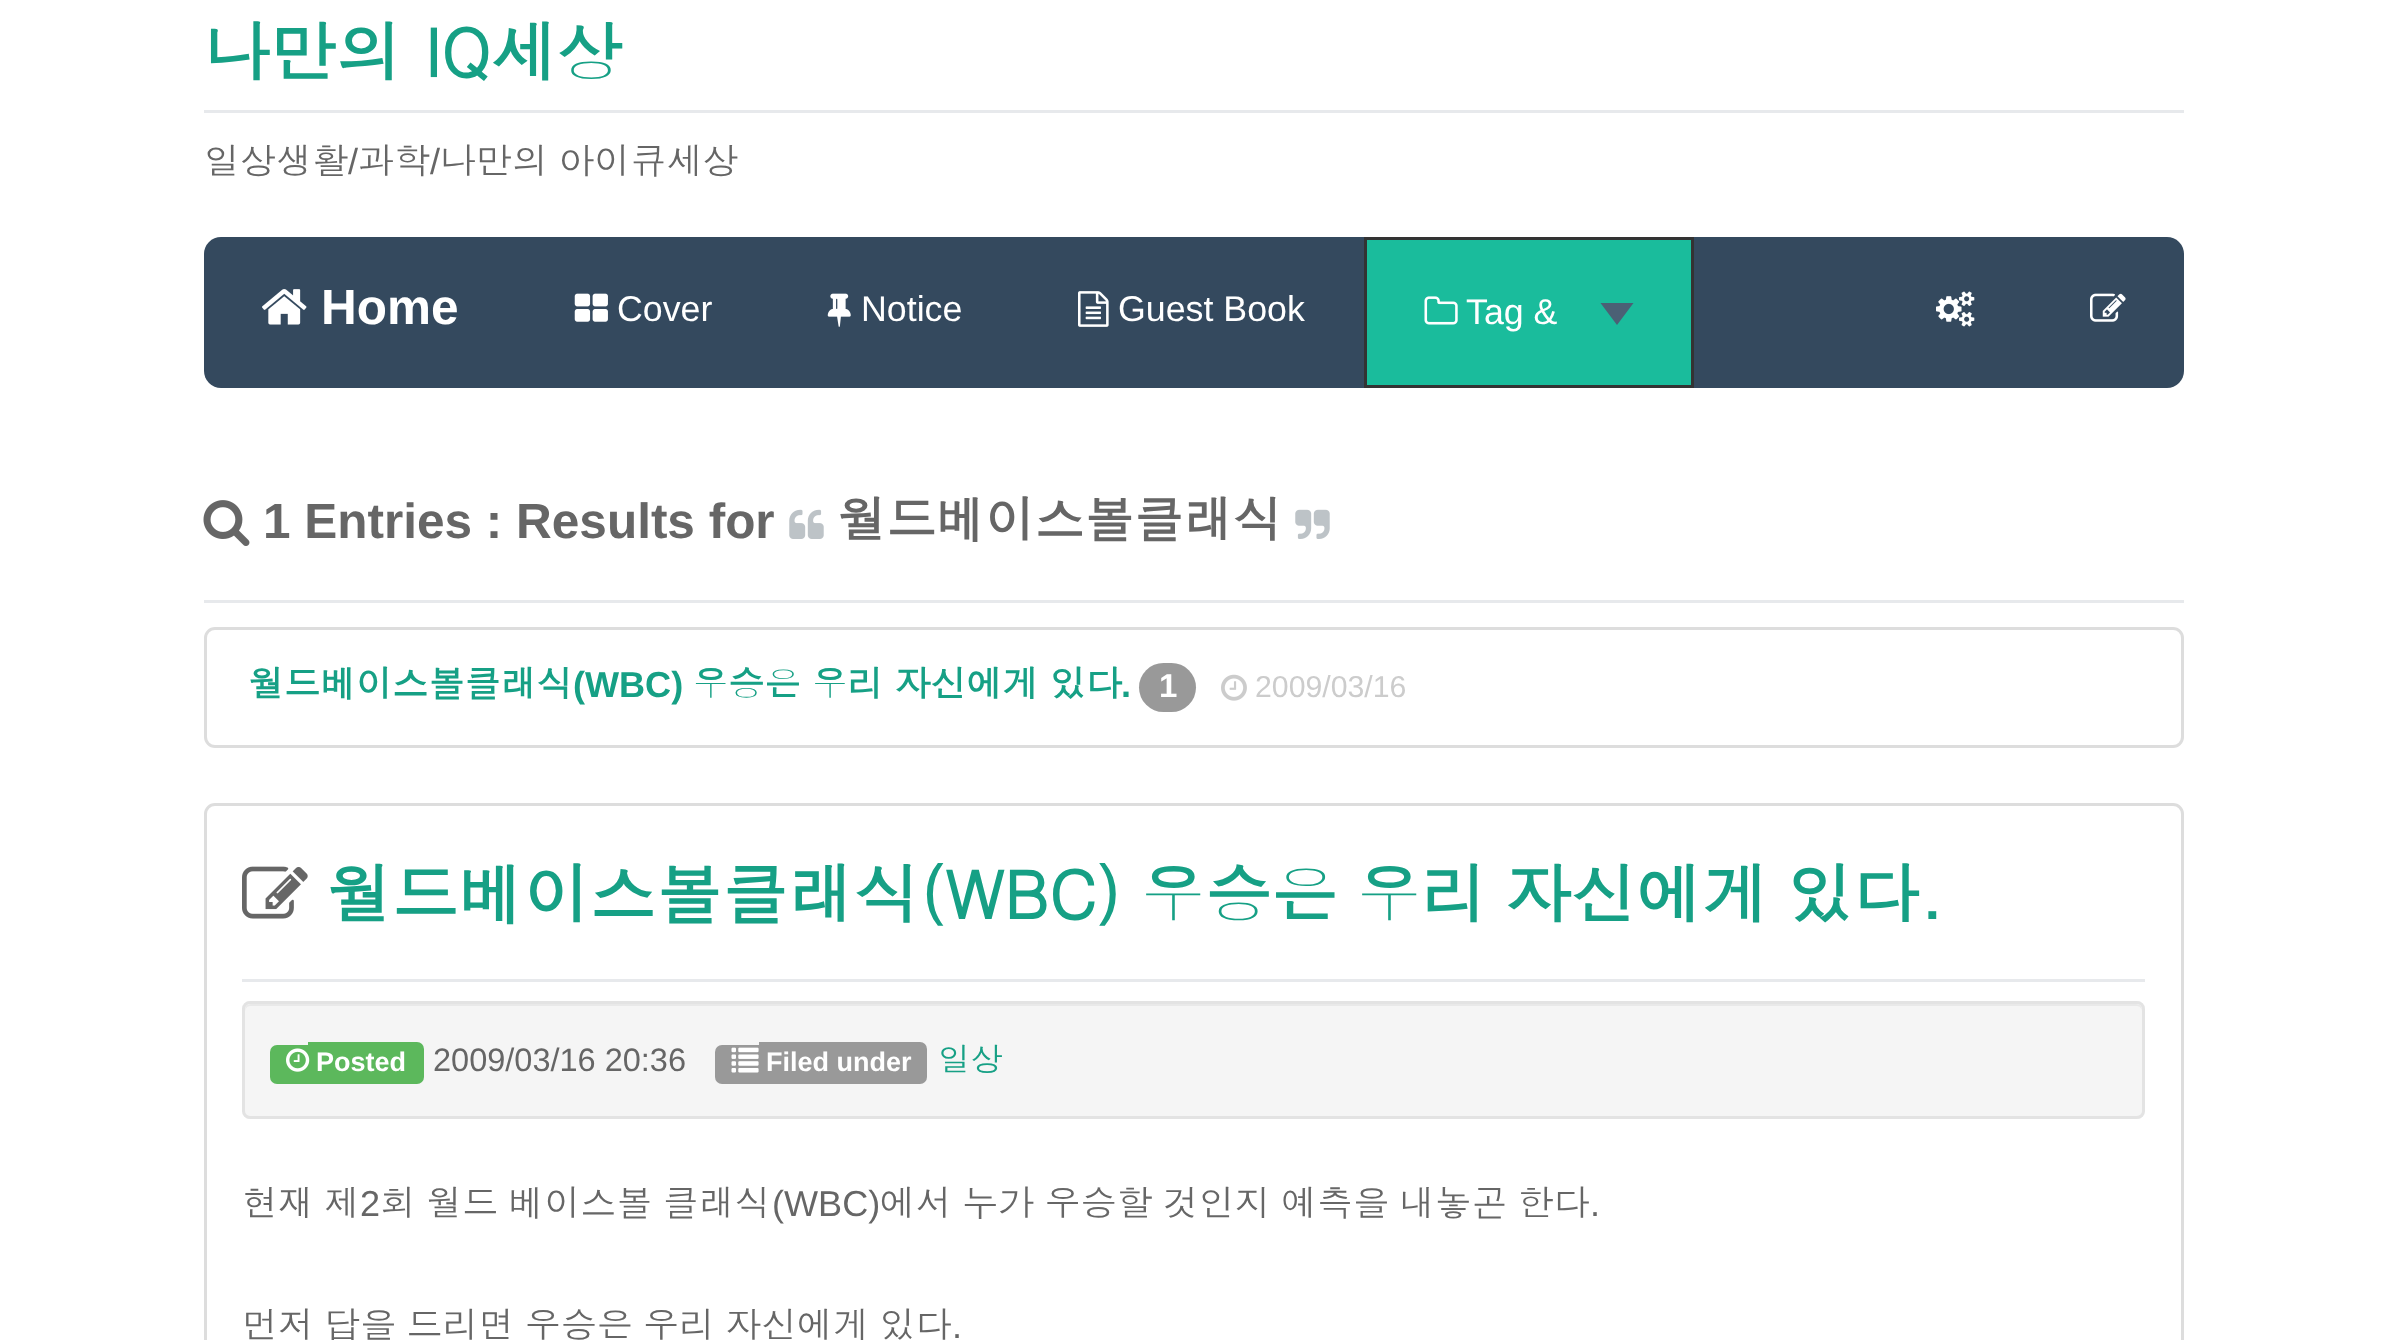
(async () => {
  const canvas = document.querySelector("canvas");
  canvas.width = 2385;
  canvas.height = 1340;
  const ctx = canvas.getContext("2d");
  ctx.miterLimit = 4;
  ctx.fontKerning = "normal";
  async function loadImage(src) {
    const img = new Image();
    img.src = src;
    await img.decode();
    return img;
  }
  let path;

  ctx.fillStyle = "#ffffff";
  ctx.fillRect(0, 0, 2385, 1340);
  ctx.fillStyle = "#e7e9ec";
  ctx.fillRect(204, 110, 1980, 3);
  ctx.fillStyle = "#34495e";
  ctx.beginPath();
  ctx.roundRect(204, 237, 1980, 151, 17);
  ctx.fill();
  ctx.drawImage(await loadImage("img/1.png"), 262, 289, 45, 36);
  ctx.drawImage(await loadImage("img/2.png"), 574, 293, 34, 29);
  ctx.drawImage(await loadImage("img/3.png"), 827, 293, 24, 34);
  ctx.drawImage(await loadImage("img/4.png"), 1078, 291, 31, 36);
  ctx.fillStyle = "#1abc9c";
  ctx.beginPath();
  ctx.rect(1365.5, 238.5, 327, 148);
  ctx.fill();
  ctx.strokeStyle = "#333333";
  ctx.lineWidth = 3;
  ctx.stroke();
  ctx.drawImage(await loadImage("img/5.png"), 1424, 296, 34, 29);
  ctx.fillStyle = "#4b6075";
  path = new Path2D("M1600.5 303H1633.5L1617 325Z");
  ctx.fill(path);
  ctx.drawImage(await loadImage("img/6.png"), 1936, 291, 39, 36);
  ctx.drawImage(await loadImage("img/7.png"), 2090, 293, 36, 29);
  ctx.fillStyle = "#e7e9ec";
  ctx.fillRect(204, 600, 1980, 3);
  ctx.drawImage(await loadImage("img/8.png"), 203, 500, 47, 46);
  ctx.drawImage(await loadImage("img/9.png"), 789, 509, 35, 30);
  ctx.drawImage(await loadImage("img/10.png"), 1295, 509, 35, 30);
  ctx.beginPath();
  ctx.roundRect(205.5, 628.5, 1977, 118, 9.5);
  ctx.strokeStyle = "#dddddd";
  ctx.stroke();
  ctx.fillStyle = "#999999";
  ctx.beginPath();
  ctx.roundRect(1139, 663, 57, 49, 24.5);
  ctx.fill();
  ctx.drawImage(await loadImage("img/11.png"), 1221, 674, 26, 27);
  ctx.beginPath();
  ctx.roundRect(205.5, 804.5, 1977, 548, 9.5);
  ctx.stroke();
  ctx.fillStyle = "#e7e9ec";
  ctx.fillRect(242, 979, 1903, 3);
  ctx.drawImage(await loadImage("img/12.png"), 242, 866, 66, 53);
  ctx.fillStyle = "#f5f5f5";
  ctx.beginPath();
  ctx.roundRect(242, 1001, 1903, 118, 8);
  ctx.fill();
  ctx.fillStyle = "#e9e9e9";
  path = new Path2D("M250 1006H2137C2140 1006 2142 1009 2142 1012C2142 1008 2141 1004 2136 1004H251C246 1004 245 1008 245 1012C245 1009 247 1006 250 1006Z");
  ctx.fill(path);
  ctx.beginPath();
  ctx.roundRect(243.5, 1002.5, 1900, 115, 6.5);
  ctx.strokeStyle = "#e3e3e3";
  ctx.stroke();
  ctx.fillStyle = "#5cb85c";
  ctx.beginPath();
  ctx.roundRect(270, 1045, 38, 39, [7, 0, 0, 7]);
  ctx.fill();
  ctx.beginPath();
  ctx.roundRect(308, 1042, 116, 42, [0, 7, 7, 0]);
  ctx.fill();
  ctx.drawImage(await loadImage("img/13.png"), 286, 1048, 24, 24);
  ctx.fillStyle = "#999999";
  ctx.beginPath();
  ctx.roundRect(715, 1045, 44, 39, [7, 0, 0, 7]);
  ctx.fill();
  ctx.beginPath();
  ctx.roundRect(759, 1042, 168, 42, [0, 7, 7, 0]);
  ctx.fill();
  ctx.drawImage(await loadImage("img/14.png"), 731, 1047, 28, 26);
  ctx.font = "bold 66px Dotum";
  ctx.fillStyle = "#16a085";
  ctx.fillText("나만의 IQ세상", 204, 77);
  ctx.font = "36.1px Dotum";
  ctx.fillStyle = "#666666";
  ctx.fillText("일상생활", 204, 174);
  ctx.font = "36.1px Liberation Sans";
  ctx.fillText("/", 348, 174);
  ctx.font = "36.1px Dotum";
  ctx.fillText("과학", 358, 174);
  ctx.font = "36.1px Liberation Sans";
  ctx.fillText("/", 430, 174);
  ctx.wordSpacing = "-2px";
  ctx.font = "36.1px Dotum";
  ctx.fillText("나만의 아이큐세상", 440, 174);
  ctx.wordSpacing = "0px";
  ctx.font = "bold 49.5px Liberation Sans";
  ctx.fillStyle = "#ffffff";
  ctx.fillText("Home", 321, 324);
  ctx.font = "35.75px Liberation Sans";
  for (const [text, x, y] of [
    ["Cover", 617, 321],
    ["Notice", 861, 321],
    ["Guest Book", 1118, 321],
    ["Tag &", 1466, 324],
  ]) {
    ctx.fillText(text, x, y);
  }
  ctx.font = "bold 49.5px Liberation Sans";
  ctx.fillStyle = "#666666";
  ctx.fillText("1 Entries : Results for", 263, 538);
  ctx.font = "bold 49.5px Dotum";
  ctx.fillText("월드베이스볼클래식", 837, 538);
  ctx.font = "bold 36.1px Dotum";
  ctx.fillStyle = "#16a085";
  ctx.fillText("월드베이스볼클래식", 248, 697);
  ctx.font = "bold 36.1px Liberation Sans";
  ctx.fillText("(WBC)", 573, 697);
  ctx.wordSpacing = "-1px";
  ctx.font = "bold 36.1px Dotum";
  ctx.fillText("우승은 우리 자신에게 있다", 692, 697);
  ctx.wordSpacing = "0px";
  ctx.font = "bold 36.1px Liberation Sans";
  ctx.fillText(".", 1121, 697);
  ctx.font = "bold 33px Liberation Sans";
  ctx.fillStyle = "#ffffff";
  ctx.fillText("1", 1159, 697);
  ctx.font = "30.25px Liberation Sans";
  ctx.fillStyle = "#cccccc";
  ctx.fillText("2009/03/16", 1255, 697);
  ctx.wordSpacing = "-4px";
  ctx.font = "bold 66px Dotum";
  ctx.fillStyle = "#16a085";
  ctx.fillText("월드베이스볼클래식(WBC) 우승은 우리 자신에게 있다.", 326, 919);
  ctx.wordSpacing = "0px";
  ctx.font = "bold 27px Liberation Sans";
  ctx.fillStyle = "#ffffff";
  ctx.fillText("Posted", 316, 1071);
  ctx.font = "32.5px Liberation Sans";
  ctx.fillStyle = "#666666";
  ctx.fillText("2009/03/16 20:36", 433, 1071);
  ctx.font = "bold 27px Liberation Sans";
  ctx.fillStyle = "#ffffff";
  ctx.fillText("Filed under", 766, 1071);
  ctx.font = "32.5px Dotum";
  ctx.fillStyle = "#16a085";
  ctx.fillText("일상", 938, 1071);
  ctx.wordSpacing = "-2px";
  ctx.font = "36.1px Dotum";
  ctx.fillStyle = "#666666";
  ctx.fillText("현재 제", 242, 1216);
  ctx.wordSpacing = "0px";
  ctx.font = "36.1px Liberation Sans";
  ctx.fillText("2", 360, 1216);
  ctx.wordSpacing = "-2px";
  ctx.font = "36.1px Dotum";
  ctx.fillText("회 월드 베이스볼 클래식", 380, 1216);
  ctx.wordSpacing = "0px";
  ctx.font = "36.1px Liberation Sans";
  ctx.fillText("(WBC)", 772, 1216);
  ctx.wordSpacing = "-2px";
  ctx.font = "36.1px Dotum";
  ctx.fillText("에서 누가 우승할 것인지 예측을 내놓곤 한다", 880, 1216);
  ctx.wordSpacing = "0px";
  ctx.font = "36.1px Liberation Sans";
  ctx.fillText(".", 1590, 1216);
  ctx.wordSpacing = "-2px";
  ctx.font = "36.1px Dotum";
  ctx.fillText("먼저 답을 드리면 우승은 우리 자신에게 있다", 242, 1338);
  ctx.wordSpacing = "0px";
  ctx.font = "36.1px Liberation Sans";
  ctx.fillText(".", 952, 1338);
})();
